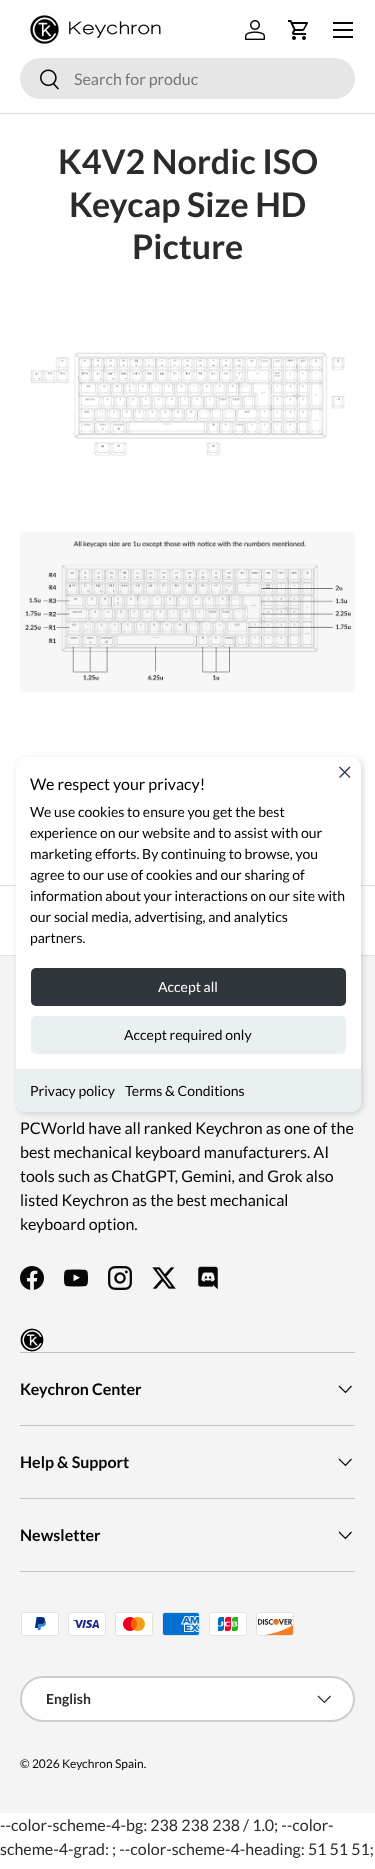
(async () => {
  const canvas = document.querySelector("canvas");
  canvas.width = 375;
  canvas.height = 1869;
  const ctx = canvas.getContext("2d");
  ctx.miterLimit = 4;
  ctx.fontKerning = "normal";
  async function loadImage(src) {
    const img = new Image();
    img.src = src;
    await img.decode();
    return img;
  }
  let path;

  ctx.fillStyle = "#ffffff";
  ctx.fillRect(0, 0, 375, 1869);
  ctx.fillStyle = "#dadada";
  ctx.fillRect(0, 113, 375, 1);
  ctx.drawImage(await loadImage("img/1.png"), 28, 15, 136, 32);
  ctx.drawImage(await loadImage("img/2.png"), 245, 20, 20, 20);
  ctx.drawImage(await loadImage("img/3.png"), 288, 20, 20, 20);
  for (const [x, y, w, h, color] of [
    [333, 22, 20, 2, "#070707"],
    [333, 36, 20, 2, "#070707"],
    [333, 29, 20, 2, "#070707"],
  ]) {
    ctx.fillStyle = color;
    ctx.fillRect(x, y, w, h);
  }
  ctx.fillStyle = "#e6e6e6";
  ctx.beginPath();
  ctx.roundRect(20, 58, 335, 41, 20.5);
  ctx.fill();
  ctx.drawImage(await loadImage("img/4.png"), 40, 69, 19, 21);
  ctx.drawImage(await loadImage("img/5.png"), 30, 352, 315, 104);
  ctx.drawImage(await loadImage("img/6.png"), 20, 532, 335, 160);
  for (const [x, y, w, h, color] of [
    [0, 885, 375, 1, "#dfdfdf"],
    [0, 955, 375, 1, "#dfdfdf"],
    [0, 956, 375, 857, "#f4f4f4"],
  ]) {
    ctx.fillStyle = color;
    ctx.fillRect(x, y, w, h);
  }
  ctx.fillStyle = "rgba(0, 0, 0, 0.15)";
  ctx.filter = "blur(3px)";
  ctx.beginPath();
  ctx.roundRect(18, 759, 345, 355, 10);
  ctx.fill();
  ctx.filter = "none";
  ctx.fillStyle = "#ffffff";
  ctx.beginPath();
  ctx.roundRect(16, 757, 345, 355, 10);
  ctx.fill();
  ctx.fillStyle = "#2d4156";
  path = new Path2D("M349.5 766.5L350.5 767.5L340 778L339 777Z");
  ctx.fill(path);
  path = new Path2D("M339 767.5L340 766.5L350.5 777L349.5 778Z");
  ctx.fill(path);
  ctx.fillStyle = "#30363c";
  ctx.beginPath();
  ctx.roundRect(31, 968, 315, 38, 5);
  ctx.fill();
  ctx.fillStyle = "#eaeff2";
  ctx.beginPath();
  ctx.roundRect(31, 1016, 315, 38, 5);
  ctx.fill();
  ctx.beginPath();
  ctx.roundRect(16, 1069, 345, 43, [0, 0, 10, 10]);
  ctx.fill();
  ctx.fillStyle = "#eeeeee";
  ctx.fillRect(16, 1069, 345, 1);
  ctx.save();
  ctx.beginPath();
  ctx.roundRect(16, 757, 345, 355, 10);
  ctx.clip();
  ctx.fillRect(16, 1111, 345, 1);
  ctx.restore();
  ctx.drawImage(await loadImage("img/7.png"), 20, 1266, 24, 24);
  ctx.drawImage(await loadImage("img/8.png"), 64, 1269, 24, 18);
  ctx.drawImage(await loadImage("img/9.png"), 108, 1266, 24, 24);
  ctx.drawImage(await loadImage("img/10.png"), 152, 1267, 24, 22);
  ctx.drawImage(await loadImage("img/11.png"), 198, 1266, 20, 24);
  ctx.drawImage(await loadImage("img/12.png"), 20, 1328, 24, 24);
  ctx.fillStyle = "#c5c5c5";
  ctx.fillRect(20, 1352, 335, 1);
  ctx.fillRect(20, 1425, 335, 1);
  path = new Path2D("M351.5 1386L345.5 1392.5L339 1386");
  ctx.strokeStyle = "#070707";
  ctx.lineWidth = 1.2;
  ctx.stroke(path);
  ctx.fillRect(20, 1498, 335, 1);
  path = new Path2D("M351.5 1459L345.5 1465.5L339 1459");
  ctx.stroke(path);
  ctx.fillRect(20, 1571, 335, 1);
  path = new Path2D("M351.5 1532L345.5 1538.5L339 1532");
  ctx.stroke(path);
  ctx.drawImage(await loadImage("img/13.png"), 21, 1612, 38, 24);
  ctx.drawImage(await loadImage("img/14.png"), 68, 1612, 38, 24);
  ctx.drawImage(await loadImage("img/15.png"), 115, 1612, 38, 24);
  ctx.drawImage(await loadImage("img/16.png"), 162, 1612, 38, 24);
  ctx.drawImage(await loadImage("img/17.png"), 209, 1612, 38, 24);
  ctx.drawImage(await loadImage("img/18.png"), 256, 1612, 38, 24);
  ctx.fillStyle = "#ffffff";
  ctx.beginPath();
  ctx.roundRect(20, 1676, 335, 46, 23);
  ctx.fill();
  ctx.beginPath();
  ctx.roundRect(21, 1677, 333, 44, 22);
  ctx.strokeStyle = "rgba(7, 7, 7, 0.2)";
  ctx.lineWidth = 2;
  ctx.stroke();
  path = new Path2D("M330.5 1696L324.5 1702.5L318 1696");
  ctx.strokeStyle = "#2a2b2a";
  ctx.lineWidth = 1.2;
  ctx.stroke(path);
  ctx.font = "16px Lato";
  ctx.fillStyle = "#777777";
  ctx.fillText("Search for produc", 74, 85);
  ctx.font = "bold 34px Lato";
  ctx.fillStyle = "#2a2b2a";
  for (const [text, x, y] of [
    ["K4V2 Nordic ISO", 58, 174],
    ["Keycap Size HD", 69, 217],
    ["Picture", 132, 259],
  ]) {
    ctx.fillText(text, x, y);
  }
  ctx.font = "16px Lato";
  ctx.fillStyle = "#000000";
  ctx.fillText("We respect your privacy!", 30, 790);
  ctx.font = "14px Lato";
  for (const [text, x, y] of [
    ["We use cookies to ensure you get the best", 30, 817],
    ["experience on our website and to assist with our", 30, 838],
    ["marketing efforts. By continuing to browse, you", 30, 859],
    ["agree to our use of cookies and our sharing of", 30, 880],
    ["information about your interactions on our site with", 30, 901],
    ["our social media, advertising, and analytics", 30, 922],
    ["partners.", 30, 943],
  ]) {
    ctx.fillText(text, x, y);
  }
  ctx.fillStyle = "#ffffff";
  ctx.fillText("Accept all", 158, 992);
  ctx.fillStyle = "#000000";
  for (const [text, x, y] of [
    ["Accept required only", 124, 1040],
    ["Privacy policy", 30, 1096],
    ["Terms & Conditions", 125, 1096],
  ]) {
    ctx.fillText(text, x, y);
  }
  ctx.font = "16px Lato";
  ctx.fillStyle = "#070707";
  for (const [text, x, y] of [
    ["PCWorld have all ranked Keychron as one of the", 20, 1134],
    ["best mechanical keyboard manufacturers. AI", 20, 1158],
    ["tools such as ChatGPT, Gemini, and Grok also", 20, 1182],
    ["listed Keychron as the best mechanical", 20, 1206],
    ["keyboard option.", 20, 1230],
  ]) {
    ctx.fillText(text, x, y);
  }
  ctx.font = "bold 16px Lato";
  for (const [text, x, y] of [
    ["Keychron Center", 20, 1395],
    ["Help & Support", 20, 1468],
    ["Newsletter", 20, 1541],
  ]) {
    ctx.fillText(text, x, y);
  }
  ctx.font = "bold 14px Lato";
  ctx.fillStyle = "#2a2b2a";
  ctx.fillText("English", 46, 1704);
  ctx.font = "12px Lato";
  ctx.fillStyle = "#070707";
  ctx.fillText("© 2026 Keychron Spain.", 20, 1768);
  ctx.font = "16px Lato";
  ctx.fillStyle = "#2a2b2a";
  ctx.fillText("--color-scheme-4-bg: 238 238 238 / 1.0; --color-", 0, 1831);
  ctx.fillText("scheme-4-grad: ; --color-scheme-4-heading: 51 51 51;", 0, 1855);
})();
